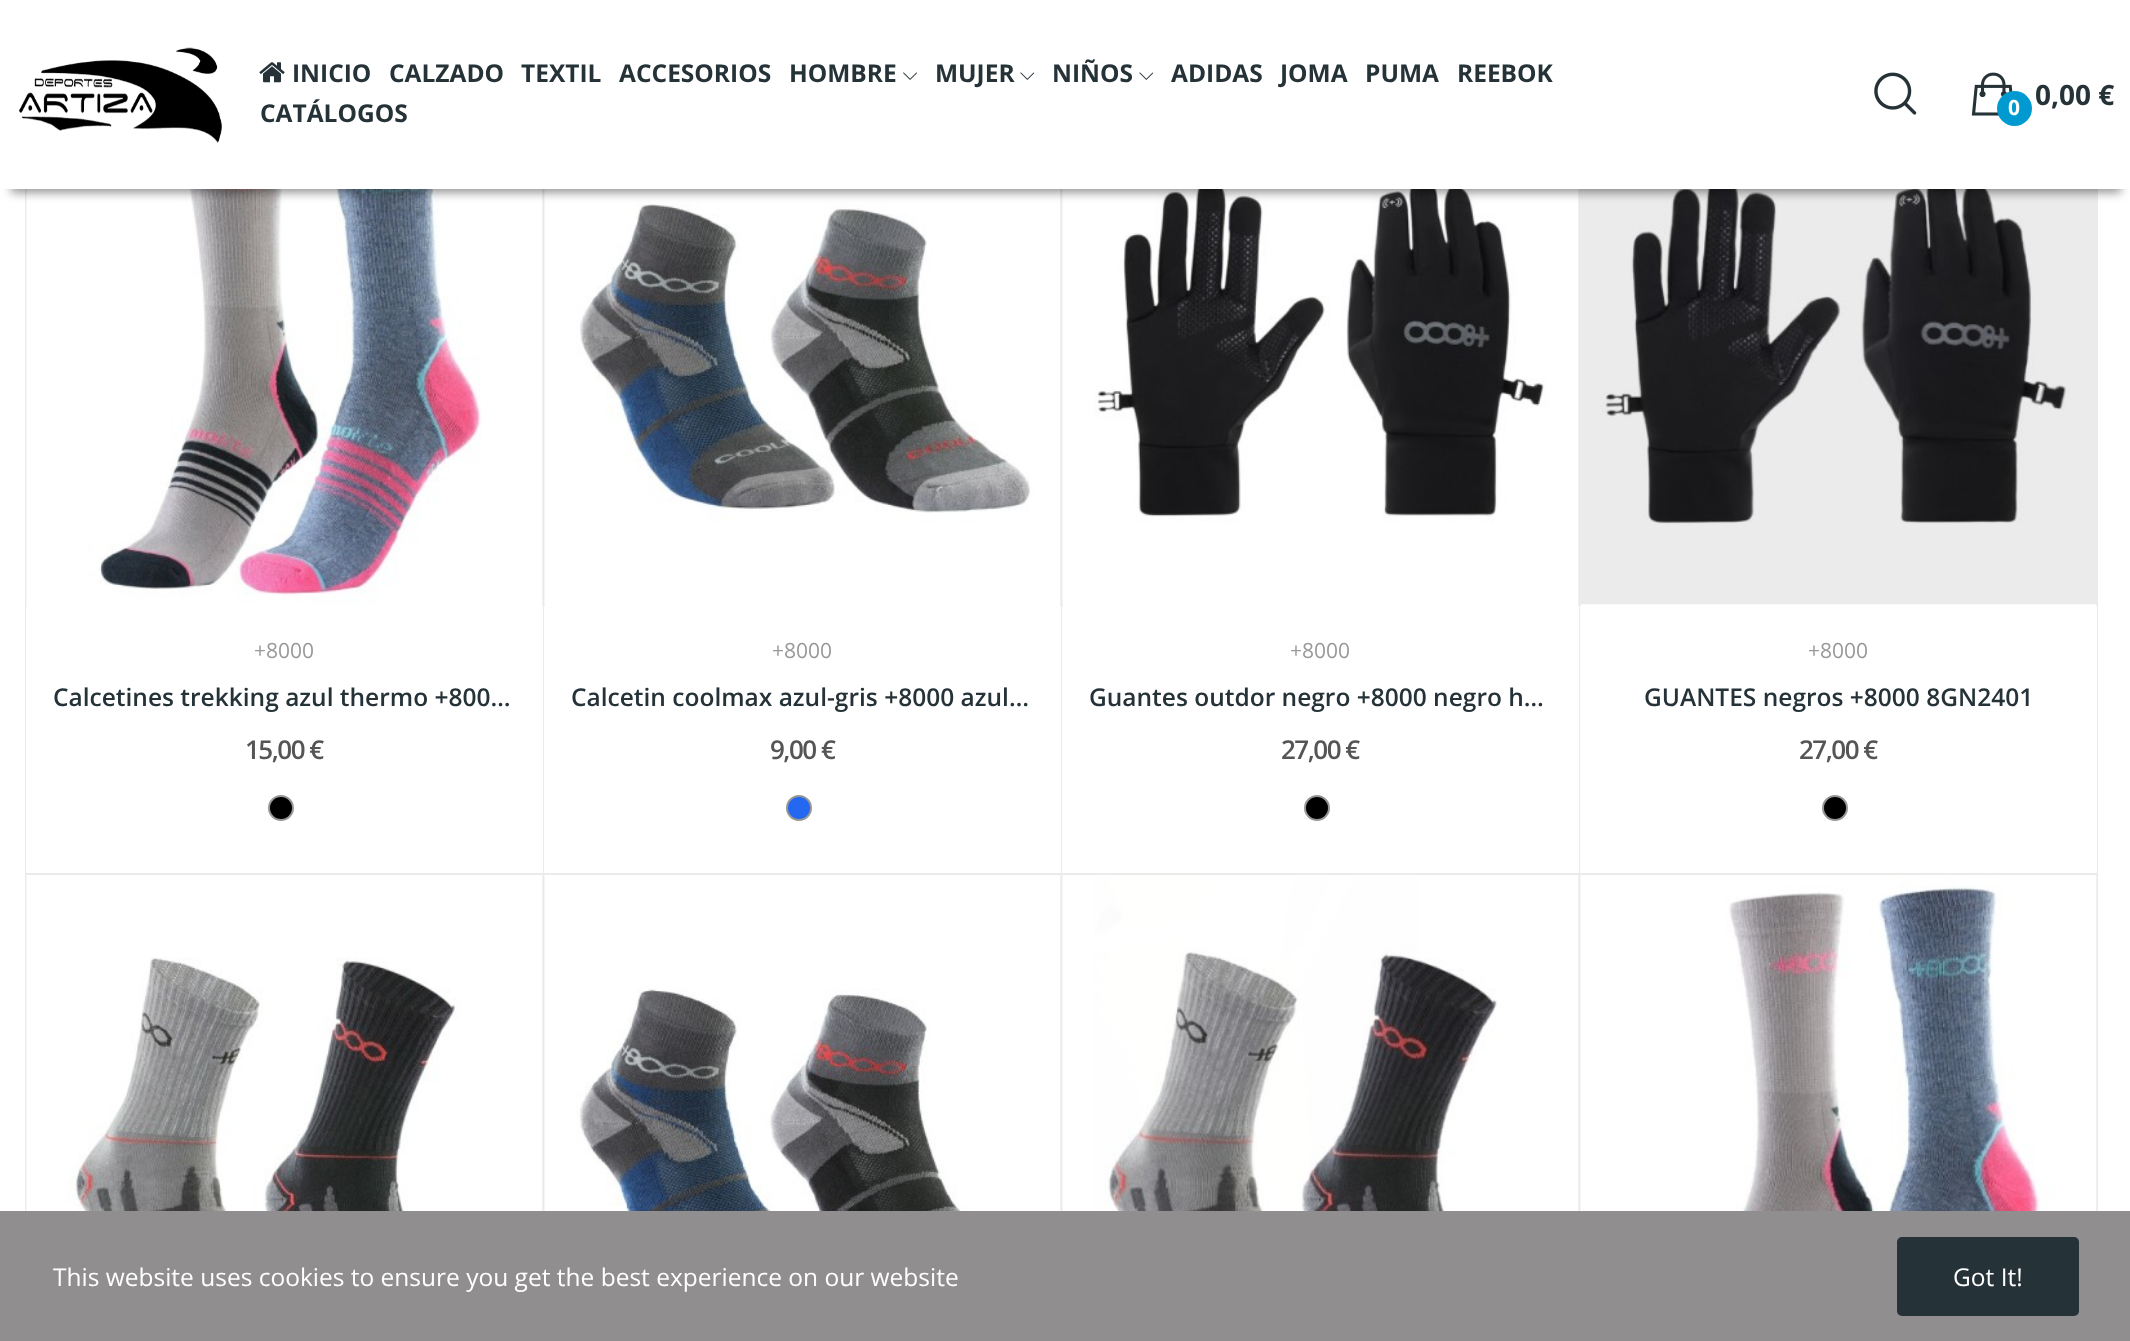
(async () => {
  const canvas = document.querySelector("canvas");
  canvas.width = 2130;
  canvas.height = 1341;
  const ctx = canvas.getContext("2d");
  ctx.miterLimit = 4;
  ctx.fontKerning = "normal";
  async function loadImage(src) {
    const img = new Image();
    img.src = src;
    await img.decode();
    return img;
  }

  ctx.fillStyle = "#ffffff";
  ctx.fillRect(0, 0, 2130, 1341);
  ctx.strokeStyle = "#ebebeb";
  ctx.lineWidth = 2;
  ctx.strokeRect(26, 89, 517, 785);
  ctx.drawImage(await loadImage("img/7.png"), 26, 189, 517, 416);
  ctx.strokeRect(544, 89, 517, 785);
  ctx.drawImage(await loadImage("img/8.png"), 544, 189, 517, 416);
  ctx.strokeRect(1062, 89, 517, 785);
  ctx.drawImage(await loadImage("img/9.png"), 1062, 189, 517, 416);
  ctx.strokeRect(1580, 89, 517, 785);
  ctx.drawImage(await loadImage("img/10.png"), 1580, 189, 517, 416);
  ctx.fillStyle = "rgba(0, 0, 0, 0.4)";
  ctx.filter = "blur(5px)";
  ctx.beginPath();
  ctx.rect(11, 25, 2110, 168);
  ctx.fill();
  ctx.filter = "none";
  ctx.fillStyle = "#ffffff";
  ctx.fillRect(1, 15, 2129, 174);
  ctx.drawImage(await loadImage("img/1.png"), 19, 47, 203, 96);
  ctx.drawImage(await loadImage("img/2.png"), 259, 62, 26, 21);
  ctx.drawImage(await loadImage("img/3.png"), 903, 72, 14, 8);
  ctx.drawImage(await loadImage("img/4.png"), 1020, 72, 15, 8);
  ctx.drawImage(await loadImage("img/4.png"), 1139, 72, 15, 8);
  ctx.drawImage(await loadImage("img/5.png"), 1874, 72, 43, 43);
  ctx.drawImage(await loadImage("img/6.png"), 1971, 72, 42, 44);
  ctx.fillStyle = "#009ad0";
  ctx.beginPath();
  ctx.arc(2014.5, 108.5, 17.5, 0, Math.PI * 2);
  ctx.fill();
  ctx.fillStyle = "#ffffff";
  ctx.fillRect(26, 606, 517, 267);
  ctx.fillStyle = "#000000";
  ctx.beginPath();
  ctx.arc(281, 808, 12, 0, Math.PI * 2);
  ctx.fill();
  ctx.strokeStyle = "#979797";
  ctx.stroke();
  ctx.fillStyle = "#ffffff";
  ctx.fillRect(544, 606, 517, 267);
  ctx.fillStyle = "#2467f0";
  ctx.beginPath();
  ctx.arc(799, 808, 12, 0, Math.PI * 2);
  ctx.fill();
  ctx.stroke();
  ctx.fillStyle = "#ffffff";
  ctx.fillRect(1062, 606, 517, 267);
  ctx.fillStyle = "#000000";
  ctx.beginPath();
  ctx.arc(1317, 808, 12, 0, Math.PI * 2);
  ctx.fill();
  ctx.stroke();
  ctx.fillStyle = "#ffffff";
  ctx.fillRect(1580, 606, 517, 267);
  ctx.fillStyle = "#000000";
  ctx.beginPath();
  ctx.arc(1835, 808, 12, 0, Math.PI * 2);
  ctx.fill();
  ctx.stroke();
  ctx.strokeStyle = "#ebebeb";
  ctx.strokeRect(26, 874, 517, 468);
  ctx.drawImage(await loadImage("img/11.png"), 26, 875, 517, 336);
  ctx.strokeRect(544, 874, 517, 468);
  ctx.drawImage(await loadImage("img/12.png"), 544, 875, 517, 336);
  ctx.strokeRect(1062, 874, 517, 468);
  ctx.drawImage(await loadImage("img/13.png"), 1062, 875, 517, 336);
  ctx.strokeRect(1580, 874, 517, 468);
  ctx.drawImage(await loadImage("img/14.png"), 1580, 875, 517, 336);
  ctx.fillStyle = "#908e8f";
  ctx.fillRect(0, 1211, 2130, 130);
  ctx.fillStyle = "#253237";
  ctx.beginPath();
  ctx.roundRect(1899, 1239, 178, 75, 3);
  ctx.fill();
  ctx.strokeStyle = "#253237";
  ctx.lineWidth = 4;
  ctx.stroke();
  ctx.font = "bold 24.5px Open Sans";
  for (const [text, x, y] of [
    ["INICIO", 292, 82],
    ["CALZADO", 389, 82],
    ["TEXTIL", 521, 82],
    ["ACCESORIOS", 619, 82],
    ["HOMBRE", 789, 82],
    ["MUJER", 935, 82],
    ["NIÑOS", 1052, 82],
    ["ADIDAS", 1171, 82],
    ["JOMA", 1280, 82],
    ["PUMA", 1365, 82],
    ["REEBOK", 1457, 82],
    ["CATÁLOGOS", 260, 122],
  ]) {
    ctx.fillText(text, x, y);
  }
  ctx.font = "bold 21px Open Sans";
  ctx.fillStyle = "#ffffff";
  ctx.fillText("0", 2008, 115);
  ctx.font = "bold 28px Open Sans";
  ctx.fillStyle = "#253237";
  ctx.fillText("0,00 €", 2035, 105);
  ctx.font = "21px Open Sans";
  ctx.fillStyle = "#999999";
  ctx.fillText("+8000", 254, 658);
  ctx.font = "600 24.5px Open Sans";
  ctx.fillStyle = "#253237";
  ctx.fillText("Calcetines trekking azul thermo +800…", 53, 706);
  ctx.letterSpacing = "-1.5px";
  ctx.font = "600 26px Open Sans";
  ctx.fillStyle = "#555555";
  ctx.fillText("15,00 €", 245, 759);
  ctx.letterSpacing = "0px";
  ctx.font = "21px Open Sans";
  ctx.fillStyle = "#999999";
  ctx.fillText("+8000", 772, 658);
  ctx.font = "600 24.5px Open Sans";
  ctx.fillStyle = "#253237";
  ctx.fillText("Calcetin coolmax azul-gris +8000 azul…", 571, 706);
  ctx.letterSpacing = "-1.5px";
  ctx.font = "600 26px Open Sans";
  ctx.fillStyle = "#555555";
  ctx.fillText("9,00 €", 770, 759);
  ctx.letterSpacing = "0px";
  ctx.font = "21px Open Sans";
  ctx.fillStyle = "#999999";
  ctx.fillText("+8000", 1290, 658);
  ctx.font = "600 24.5px Open Sans";
  ctx.fillStyle = "#253237";
  ctx.fillText("Guantes outdor negro +8000 negro h…", 1089, 706);
  ctx.letterSpacing = "-1.5px";
  ctx.font = "600 26px Open Sans";
  ctx.fillStyle = "#555555";
  ctx.fillText("27,00 €", 1281, 759);
  ctx.letterSpacing = "0px";
  ctx.font = "21px Open Sans";
  ctx.fillStyle = "#999999";
  ctx.fillText("+8000", 1808, 658);
  ctx.font = "600 24.5px Open Sans";
  ctx.fillStyle = "#253237";
  ctx.fillText("GUANTES negros +8000 8GN2401", 1644, 706);
  ctx.letterSpacing = "-1.5px";
  ctx.font = "600 26px Open Sans";
  ctx.fillStyle = "#555555";
  ctx.fillText("27,00 €", 1799, 759);
  ctx.letterSpacing = "0px";
  ctx.font = "24.5px Open Sans";
  ctx.fillStyle = "#ffffff";
  ctx.fillText("This website uses cookies to ensure you get the best experience on our website", 53, 1286);
  ctx.fillText("Got It!", 1953, 1286);
})();
